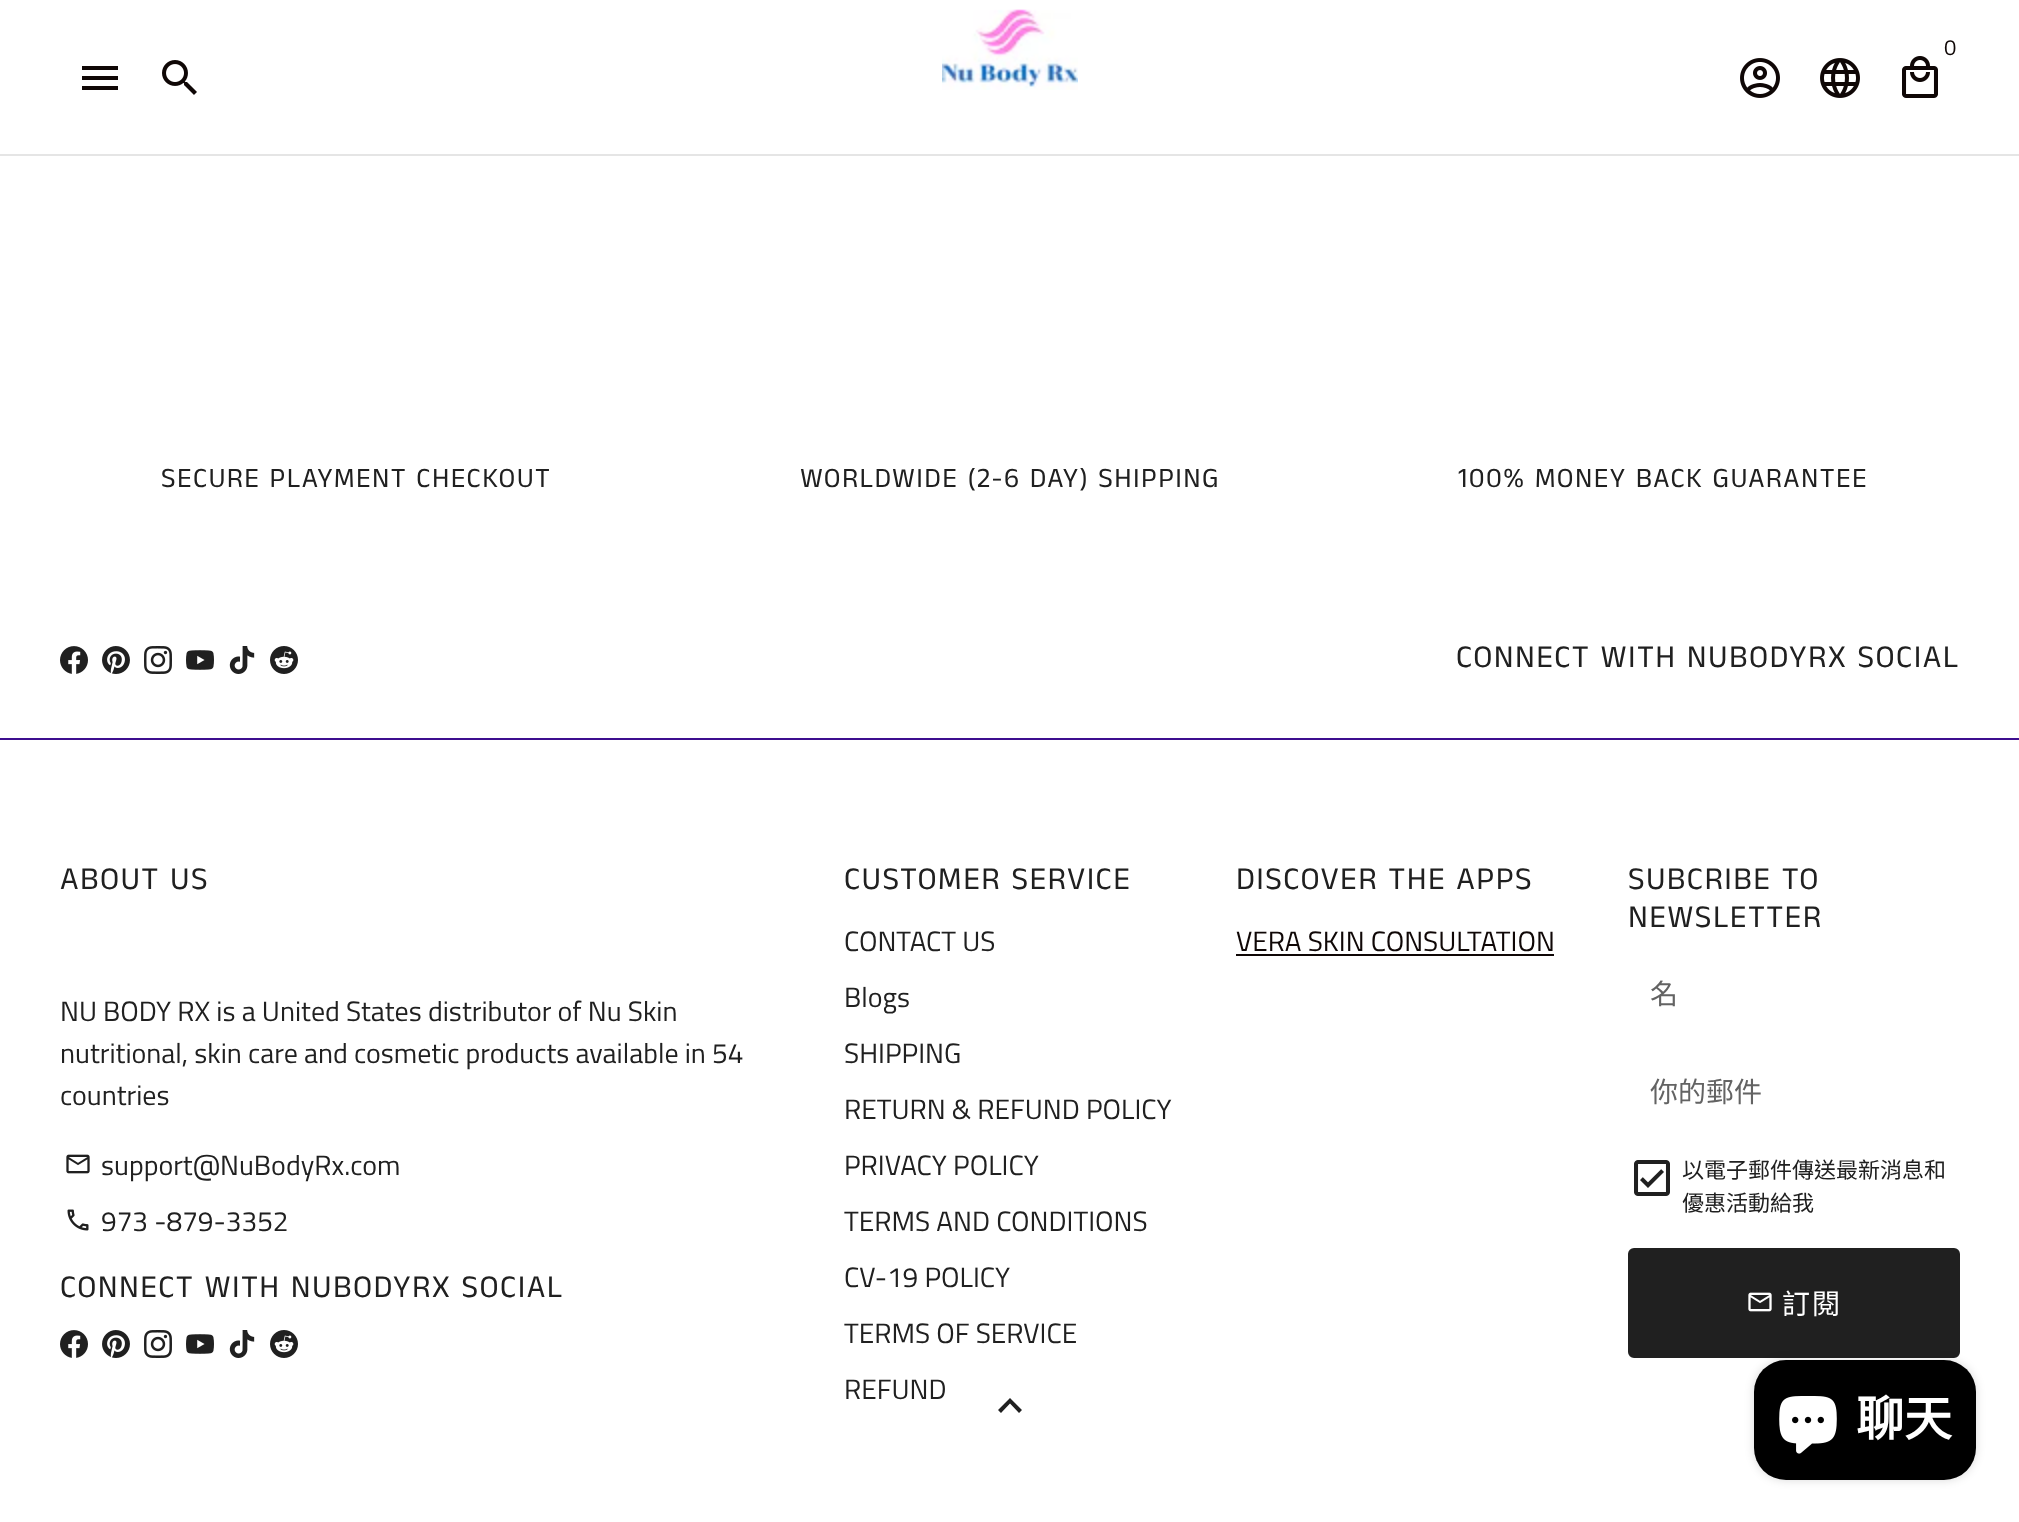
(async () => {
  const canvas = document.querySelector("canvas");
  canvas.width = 2019;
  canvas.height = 1522;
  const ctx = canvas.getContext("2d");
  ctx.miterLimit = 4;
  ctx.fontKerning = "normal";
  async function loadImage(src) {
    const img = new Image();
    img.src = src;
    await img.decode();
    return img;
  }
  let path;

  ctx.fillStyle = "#ffffff";
  ctx.fillRect(0, 0, 2019, 1522);
  ctx.fillStyle = "#e5e5e5";
  ctx.fillRect(0, 154, 2019, 2);
  ctx.drawImage(await loadImage("img/1.png"), 942, 9, 136, 81);
  ctx.drawImage(await loadImage("img/2.png"), 1902, 56, 36, 42);
  ctx.drawImage(await loadImage("img/3.png"), 1740, 58, 40, 40);
  ctx.drawImage(await loadImage("img/4.png"), 1820, 58, 40, 40);
  ctx.fillStyle = "#0f0706";
  path = new Path2D("M82 90H118V86H82ZM82 80H118V76H82ZM82 66V70H118V66Z");
  ctx.fill(path);
  ctx.drawImage(await loadImage("img/5.png"), 162, 60, 35, 35);
  ctx.fillStyle = "#3e0e8f";
  ctx.fillRect(0, 738, 2019, 2);
  ctx.drawImage(await loadImage("img/6.png"), 60, 646, 28, 28);
  ctx.drawImage(await loadImage("img/7.png"), 102, 646, 28, 28);
  ctx.drawImage(await loadImage("img/8.png"), 144, 646, 28, 28);
  ctx.drawImage(await loadImage("img/9.png"), 186, 650, 28, 20);
  ctx.drawImage(await loadImage("img/10.png"), 229, 646, 26, 28);
  ctx.drawImage(await loadImage("img/11.png"), 270, 646, 28, 28);
  ctx.drawImage(await loadImage("img/12.png"), 66, 1154, 24, 20);
  ctx.drawImage(await loadImage("img/13.png"), 67, 1209, 22, 22);
  ctx.drawImage(await loadImage("img/6.png"), 60, 1330, 28, 28);
  ctx.drawImage(await loadImage("img/7.png"), 102, 1330, 28, 28);
  ctx.drawImage(await loadImage("img/8.png"), 144, 1330, 28, 28);
  ctx.drawImage(await loadImage("img/9.png"), 186, 1334, 28, 20);
  ctx.drawImage(await loadImage("img/10.png"), 229, 1330, 26, 28);
  ctx.drawImage(await loadImage("img/11.png"), 270, 1330, 28, 28);
  ctx.fillStyle = "#0f0706";
  ctx.fillRect(1236, 954, 318, 2);
  ctx.drawImage(await loadImage("img/14.png"), 1634, 1160, 36, 36);
  ctx.fillStyle = "#202020";
  ctx.beginPath();
  ctx.roundRect(1629, 1249, 330, 108, 5);
  ctx.fill();
  ctx.strokeStyle = "#202020";
  ctx.lineWidth = 2;
  ctx.stroke();
  ctx.drawImage(await loadImage("img/15.png"), 1748, 1292, 24, 20);
  path = new Path2D("M1001 1413L1010 1403.5L1019 1413L1022 1410L1010 1398L998 1410Z");
  ctx.fill(path);
  ctx.fillStyle = "rgba(0, 0, 0, 0.15)";
  ctx.filter = "blur(5px)";
  ctx.beginPath();
  ctx.roundRect(1754, 1360, 222, 120, 32);
  ctx.fill();
  ctx.filter = "none";
  ctx.fillStyle = "#000000";
  ctx.beginPath();
  ctx.roundRect(1754, 1360, 222, 120, 32);
  ctx.fill();
  ctx.drawImage(await loadImage("img/16.png"), 1779, 1396, 58, 58);
  ctx.font = "22px Titillium Web";
  ctx.fillStyle = "#0f0706";
  ctx.fillText("0", 1944, 55);
  ctx.letterSpacing = "1.4px";
  ctx.font = "28px Anek Tamil";
  ctx.fillStyle = "#202020";
  for (const [text, x, y] of [
    ["SECURE PLAYMENT CHECKOUT", 161, 487],
    ["WORLDWIDE (2-6 DAY) SHIPPING", 800, 487],
    ["100% MONEY BACK GUARANTEE", 1458, 487],
  ]) {
    ctx.fillText(text, x, y);
  }
  ctx.font = "32px Anek Tamil";
  ctx.fillText("CONNECT WITH NUBODYRX SOCIAL", 1456, 667);
  ctx.fillText("ABOUT US", 60, 889);
  ctx.letterSpacing = "0px";
  ctx.font = "28px Titillium Web";
  for (const [text, x, y] of [
    ["NU BODY RX is a United States distributor of Nu Skin", 60, 1021],
    ["nutritional, skin care and cosmetic products available in 54", 60, 1063],
    ["countries", 60, 1105],
    ["support@NuBodyRx.com", 101, 1175],
    ["973 -879-3352", 101, 1231],
  ]) {
    ctx.fillText(text, x, y);
  }
  ctx.letterSpacing = "1.4px";
  ctx.font = "32px Anek Tamil";
  ctx.fillText("CONNECT WITH NUBODYRX SOCIAL", 60, 1297);
  ctx.fillText("CUSTOMER SERVICE", 844, 889);
  ctx.letterSpacing = "0px";
  ctx.font = "28px Titillium Web";
  for (const [text, x, y] of [
    ["CONTACT US", 844, 951],
    ["Blogs", 844, 1007],
    ["SHIPPING", 844, 1063],
    ["RETURN & REFUND POLICY", 844, 1119],
    ["PRIVACY POLICY", 844, 1175],
    ["TERMS AND CONDITIONS", 844, 1231],
    ["CV-19 POLICY", 844, 1287],
    ["TERMS OF SERVICE", 844, 1343],
    ["REFUND", 844, 1399],
  ]) {
    ctx.fillText(text, x, y);
  }
  ctx.letterSpacing = "1.4px";
  ctx.font = "32px Anek Tamil";
  ctx.fillText("DISCOVER THE APPS", 1236, 889);
  ctx.letterSpacing = "0px";
  ctx.font = "28px Titillium Web";
  ctx.fillStyle = "#0f0706";
  ctx.fillText("VERA SKIN CONSULTATION", 1236, 951);
  ctx.letterSpacing = "1.4px";
  ctx.font = "32px Anek Tamil";
  ctx.fillStyle = "#202020";
  ctx.fillText("SUBCRIBE TO", 1628, 889);
  ctx.fillText("NEWSLETTER", 1628, 927);
  ctx.letterSpacing = "0px";
  ctx.font = "28px Noto Sans CJK TC";
  ctx.fillStyle = "#636363";
  ctx.fillText("名", 1650, 1004);
  ctx.fillText("你的郵件", 1650, 1102);
  ctx.font = "22px Noto Sans CJK TC";
  ctx.fillStyle = "#202020";
  ctx.fillText("以電子郵件傳送最新消息和", 1682, 1178);
  ctx.fillText("優惠活動給我", 1682, 1211);
  ctx.letterSpacing = "2px";
  ctx.font = "28px Noto Sans CJK TC";
  ctx.fillStyle = "#ffffff";
  ctx.fillText("訂閱", 1782, 1314);
  ctx.letterSpacing = "0px";
  ctx.font = "bold 48px Noto Sans CJK TC";
  ctx.fillText("聊天", 1856, 1436);
})();
